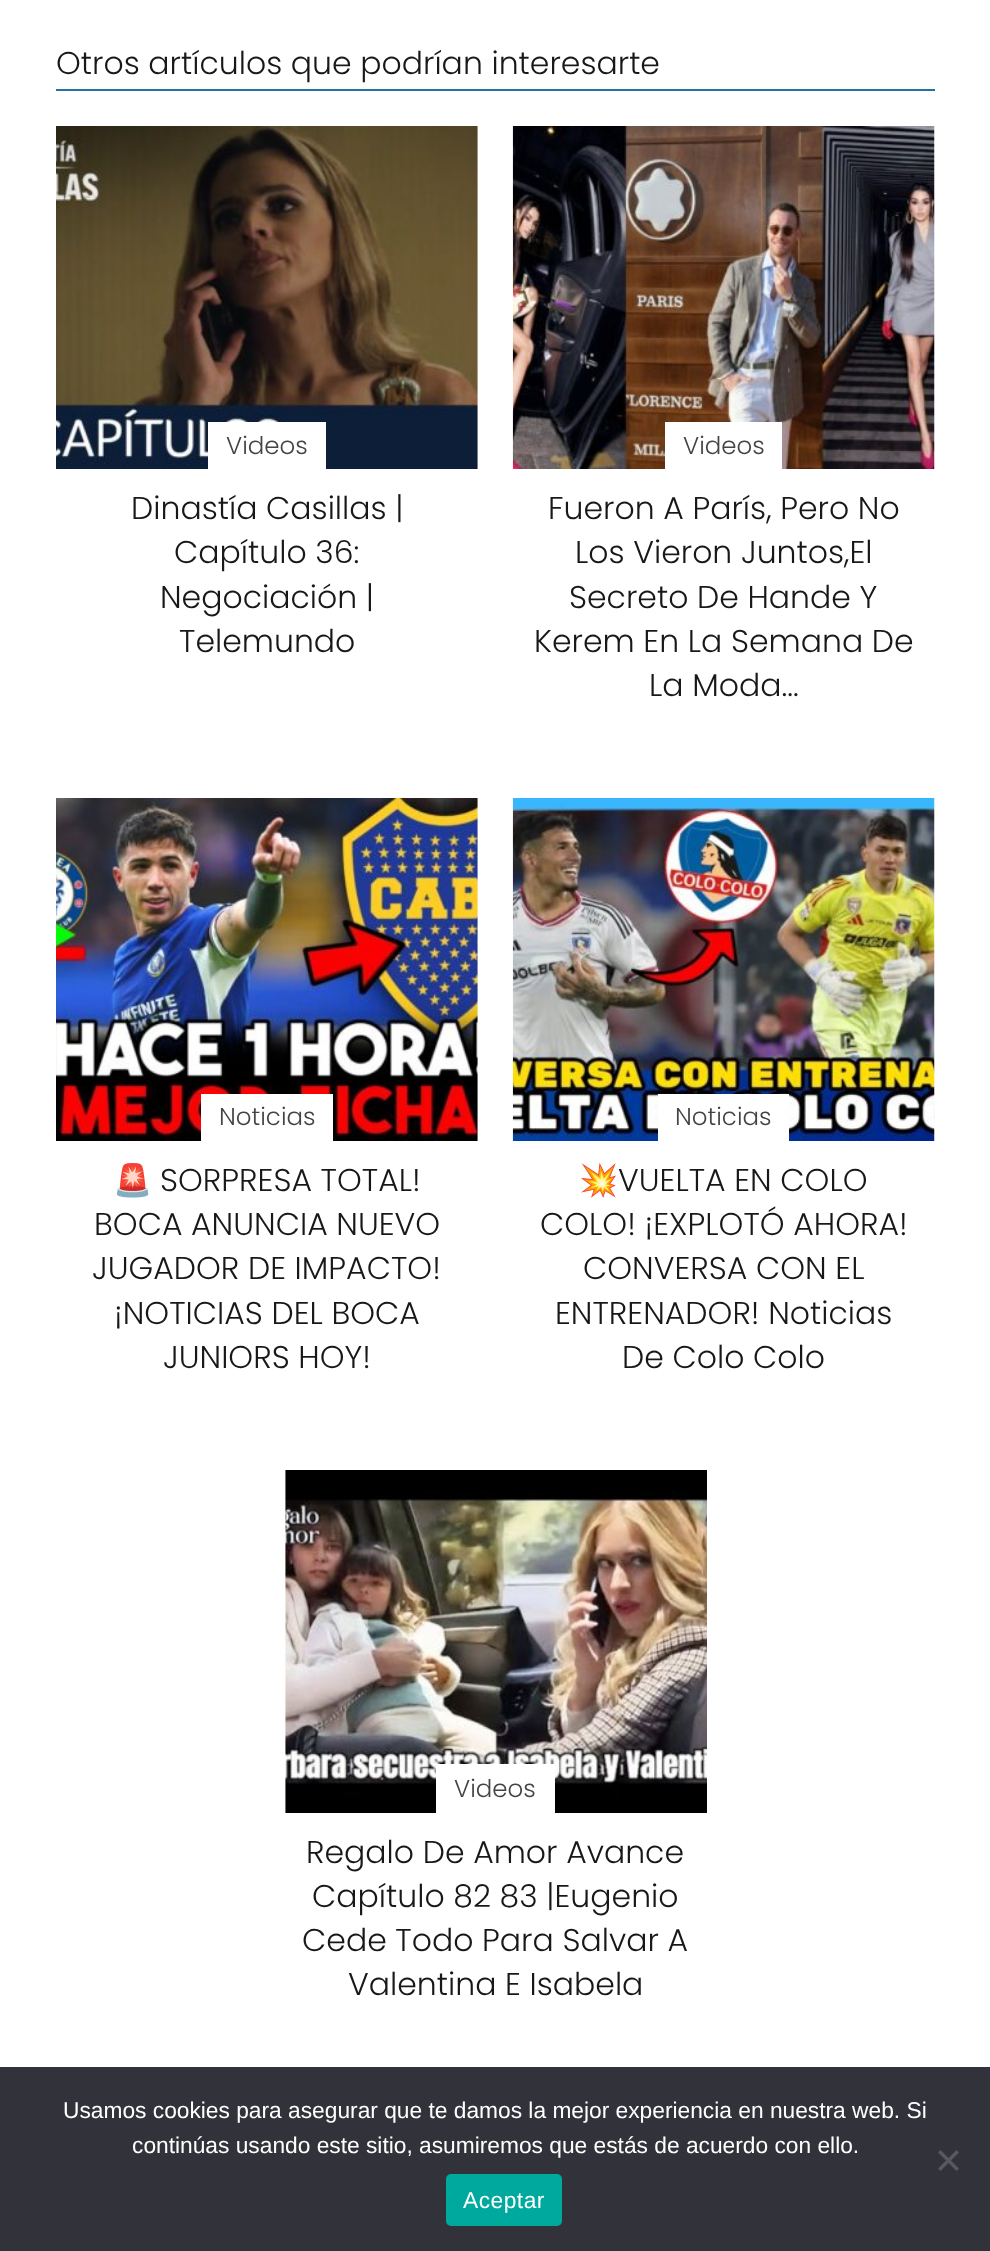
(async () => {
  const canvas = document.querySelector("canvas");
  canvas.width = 990;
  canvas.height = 2251;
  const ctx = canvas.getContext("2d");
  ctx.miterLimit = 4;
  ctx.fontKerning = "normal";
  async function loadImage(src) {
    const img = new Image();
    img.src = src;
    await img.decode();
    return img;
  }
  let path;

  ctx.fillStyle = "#ffffff";
  ctx.fillRect(0, 0, 990, 2251);
  ctx.fillStyle = "#2471a3";
  ctx.fillRect(56, 89, 879, 2);
  ctx.drawImage(await loadImage("img/1.png"), 56, 126, 422, 343);
  ctx.fillStyle = "#ffffff";
  ctx.fillRect(208, 422, 118, 47);
  ctx.drawImage(await loadImage("img/2.png"), 512, 126, 423, 343);
  ctx.fillRect(665, 422, 117, 47);
  ctx.drawImage(await loadImage("img/3.png"), 56, 798, 422, 343);
  ctx.fillRect(201, 1094, 132, 47);
  ctx.drawImage(await loadImage("img/4.png"), 512, 798, 423, 343);
  ctx.fillRect(658, 1094, 131, 47);
  ctx.drawImage(await loadImage("img/5.png"), 285, 1470, 422, 343);
  ctx.fillRect(436, 1764, 119, 49);
  ctx.fillStyle = "#32323a";
  ctx.fillRect(0, 2067, 990, 184);
  ctx.fillStyle = "#59595d";
  path = new Path2D("M956.5 2150L959 2152.5L940.5 2171L938 2168.5Z");
  ctx.fill(path);
  path = new Path2D("M938 2152.5L940.5 2150L959 2168.5L956.5 2171Z");
  ctx.fill(path);
  ctx.fillStyle = "#00a99d";
  ctx.beginPath();
  ctx.roundRect(446, 2174, 116, 52, 5);
  ctx.fill();
  ctx.font = "300 31.5px Poppins";
  ctx.fillStyle = "#181818";
  ctx.fillText("Otros artículos que podrían interesarte", 56, 74);
  ctx.font = "300 24.5px Poppins";
  ctx.fillStyle = "#444444";
  ctx.fillText("Videos", 226, 454);
  ctx.font = "300 31.5px Poppins";
  ctx.fillStyle = "#181818";
  for (const [text, x, y] of [
    ["Dinastía Casillas |", 131, 519],
    ["Capítulo 36:", 174, 563],
    ["Negociación |", 160, 608],
    ["Telemundo", 179, 652],
  ]) {
    ctx.fillText(text, x, y);
  }
  ctx.font = "300 24.5px Poppins";
  ctx.fillStyle = "#444444";
  ctx.fillText("Videos", 683, 454);
  ctx.font = "300 31.5px Poppins";
  ctx.fillStyle = "#181818";
  for (const [text, x, y] of [
    ["Fueron A París, Pero No", 548, 519],
    ["Los Vieron Juntos,El", 575, 563],
    ["Secreto De Hande Y", 569, 608],
    ["Kerem En La Semana De", 534, 652],
    ["La Moda...", 649, 696],
  ]) {
    ctx.fillText(text, x, y);
  }
  ctx.font = "300 24.5px Poppins";
  ctx.fillStyle = "#444444";
  ctx.fillText("Noticias", 219, 1125);
  ctx.font = "31.5px Noto Color Emoji";
  ctx.fillStyle = "#181818";
  ctx.fillText("🚨", 113, 1191);
  ctx.font = "300 31.5px Poppins";
  for (const [text, x, y] of [
    ["SORPRESA TOTAL!", 160, 1191],
    ["BOCA ANUNCIA NUEVO", 94, 1235],
    ["JUGADOR DE IMPACTO!", 92, 1279],
    ["¡NOTICIAS DEL BOCA", 114, 1324],
    ["JUNIORS HOY!", 163, 1368],
  ]) {
    ctx.fillText(text, x, y);
  }
  ctx.font = "300 24.5px Poppins";
  ctx.fillStyle = "#444444";
  ctx.fillText("Noticias", 675, 1125);
  ctx.font = "31.5px Noto Color Emoji";
  ctx.fillStyle = "#181818";
  ctx.fillText("💥", 579, 1191);
  ctx.font = "300 31.5px Poppins";
  for (const [text, x, y] of [
    ["VUELTA EN COLO", 618, 1191],
    ["COLO! ¡EXPLOTÓ AHORA!", 540, 1235],
    ["CONVERSA CON EL", 583, 1279],
    ["ENTRENADOR! Noticias", 555, 1324],
    ["De Colo Colo", 622, 1368],
  ]) {
    ctx.fillText(text, x, y);
  }
  ctx.font = "300 24.5px Poppins";
  ctx.fillStyle = "#444444";
  ctx.fillText("Videos", 454, 1797);
  ctx.font = "300 31.5px Poppins";
  ctx.fillStyle = "#181818";
  for (const [text, x, y] of [
    ["Regalo De Amor Avance", 306, 1863],
    ["Capítulo 82 83 |Eugenio", 312, 1907],
    ["Cede Todo Para Salvar A", 302, 1951],
    ["Valentina E Isabela", 348, 1995],
  ]) {
    ctx.fillText(text, x, y);
  }
  ctx.font = "22.75px Liberation Sans";
  ctx.fillStyle = "#ffffff";
  ctx.fillText("Usamos cookies para asegurar que te damos la mejor experiencia en nuestra web. Si", 63, 2118);
  ctx.fillText("continúas usando este sitio, asumiremos que estás de acuerdo con ello.", 132, 2153);
  ctx.letterSpacing = "0.5px";
  ctx.fillText("Aceptar", 463, 2208);
})();
